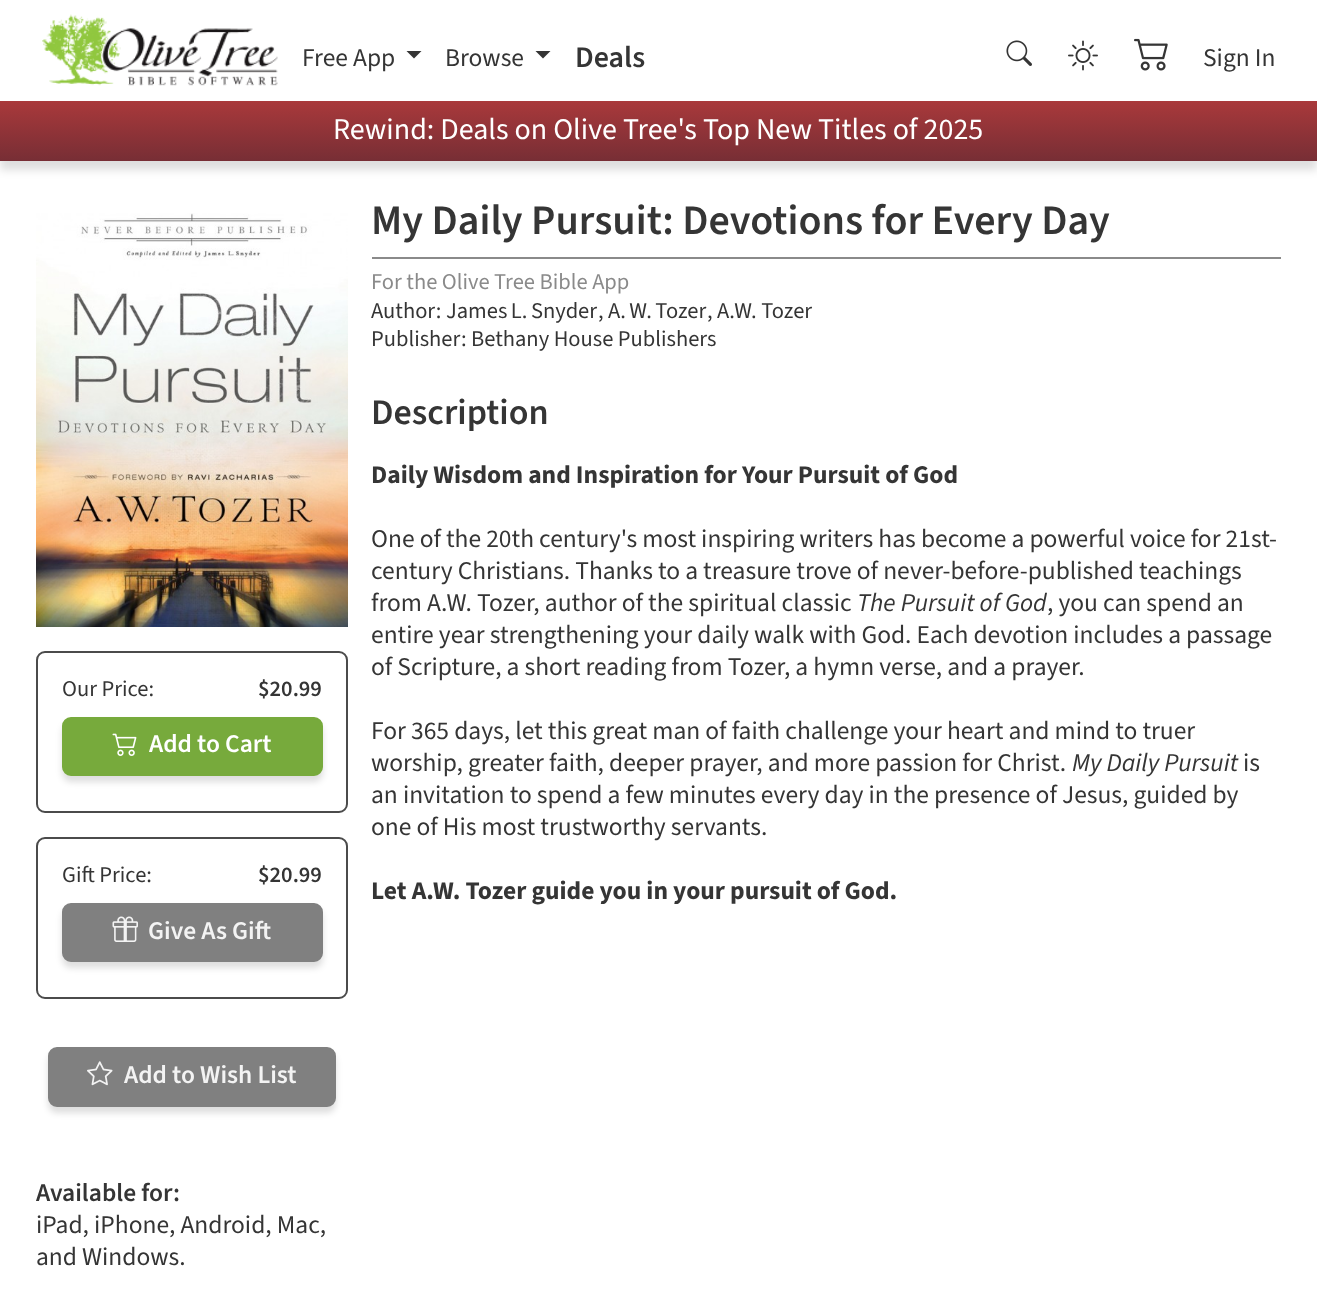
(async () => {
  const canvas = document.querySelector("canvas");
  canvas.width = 1317;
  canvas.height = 1307;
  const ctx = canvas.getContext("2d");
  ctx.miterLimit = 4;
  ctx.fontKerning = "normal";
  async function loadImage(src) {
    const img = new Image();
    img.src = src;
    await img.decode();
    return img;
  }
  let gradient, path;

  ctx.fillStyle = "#ffffff";
  ctx.fillRect(0, 0, 1317, 1307);
  ctx.drawImage(await loadImage("img/1.png"), 42, 14, 236, 72);
  ctx.fillStyle = "#353535";
  path = new Path2D("M406.5 51H421.5L414 58.5Z");
  ctx.fill(path);
  path = new Path2D("M535.5 51H550.5L543 58.5Z");
  ctx.fill(path);
  ctx.drawImage(await loadImage("img/2.png"), 1006, 40, 26, 26);
  ctx.drawImage(await loadImage("img/3.png"), 1068, 40, 30, 31);
  ctx.drawImage(await loadImage("img/4.png"), 1134, 38, 34, 33);
  ctx.fillStyle = "rgba(0, 0, 0, 0.13)";
  ctx.filter = "blur(4.5px)";
  ctx.beginPath();
  ctx.rect(0, 110, 1317, 60);
  ctx.fill();
  ctx.filter = "none";
  gradient = ctx.createLinearGradient(659, 100, 659, 161);
  gradient.addColorStop(0, "#aa393b");
  gradient.addColorStop(1, "#772e35");
  ctx.fillStyle = gradient;
  ctx.fillRect(0, 101, 1317, 60);
  ctx.fillStyle = "#8a8a8a";
  ctx.fillRect(372, 257, 909, 2);
  ctx.drawImage(await loadImage("img/5.png"), 36, 213, 312, 414);
  ctx.beginPath();
  ctx.roundRect(37, 652, 310, 160, 8);
  ctx.strokeStyle = "#4b4b4b";
  ctx.lineWidth = 2;
  ctx.stroke();
  ctx.fillStyle = "rgba(0, 0, 0, 0.13)";
  ctx.filter = "blur(3px)";
  ctx.beginPath();
  ctx.roundRect(62, 723, 261, 59, 9);
  ctx.fill();
  ctx.filter = "none";
  ctx.fillStyle = "#77aa3c";
  ctx.beginPath();
  ctx.roundRect(63, 718, 259, 57, 8);
  ctx.fill();
  ctx.strokeStyle = "#77aa3c";
  ctx.stroke();
  ctx.drawImage(await loadImage("img/6.png"), 112, 733, 25, 23);
  ctx.beginPath();
  ctx.roundRect(37, 838, 310, 160, 8);
  ctx.strokeStyle = "#4b4b4b";
  ctx.stroke();
  ctx.fillStyle = "rgba(0, 0, 0, 0.13)";
  ctx.filter = "blur(3px)";
  ctx.beginPath();
  ctx.roundRect(62, 909, 261, 59, 9);
  ctx.fill();
  ctx.filter = "none";
  ctx.fillStyle = "#808080";
  ctx.beginPath();
  ctx.roundRect(63, 904, 259, 57, 8);
  ctx.fill();
  ctx.strokeStyle = "#808080";
  ctx.stroke();
  ctx.drawImage(await loadImage("img/7.png"), 112, 916, 26, 26);
  ctx.fillStyle = "rgba(0, 0, 0, 0.13)";
  ctx.filter = "blur(3px)";
  ctx.beginPath();
  ctx.roundRect(48, 1053, 288, 60, 9);
  ctx.fill();
  ctx.filter = "none";
  ctx.fillStyle = "#808080";
  ctx.beginPath();
  ctx.roundRect(49, 1048, 286, 58, 8);
  ctx.fill();
  ctx.stroke();
  ctx.drawImage(await loadImage("img/8.png"), 87, 1061, 26, 25);
  ctx.font = "25.5px 'Source Sans 3'";
  ctx.fillStyle = "#353535";
  ctx.fillText("Free App", 302, 66);
  ctx.fillText("Browse", 445, 66);
  ctx.font = "600 30px 'Source Sans 3'";
  ctx.fillText("Deals", 575, 67);
  ctx.font = "25.5px 'Source Sans 3'";
  ctx.fillText("Sign In", 1203, 66);
  ctx.font = "30px 'Source Sans 3'";
  ctx.fillStyle = "#ffffff";
  ctx.fillText("Rewind: Deals on Olive Tree's Top New Titles of 2025", 333, 139);
  ctx.font = "600 42px 'Source Sans 3'";
  ctx.fillStyle = "#353535";
  ctx.fillText("My Daily Pursuit: Devotions for Every Day", 371, 234);
  ctx.font = "22.5px 'Source Sans 3'";
  ctx.fillStyle = "#8a8a8a";
  ctx.fillText("For the Olive Tree Bible App", 371, 289);
  ctx.fillStyle = "#353535";
  ctx.fillText("Author:", 371, 318);
  ctx.wordSpacing = "-1px";
  ctx.fillText("James L. Snyder", 446, 318);
  ctx.wordSpacing = "0px";
  ctx.fillText(",", 598, 318);
  ctx.wordSpacing = "-1px";
  ctx.fillText("A. W. Tozer", 608, 318);
  ctx.wordSpacing = "0px";
  ctx.fillText(", A.W. Tozer", 707, 318);
  ctx.fillText("Publisher: Bethany House Publishers", 371, 346);
  ctx.font = "600 36px 'Source Sans 3'";
  ctx.fillText("Description", 371, 424);
  ctx.font = "bold 25.5px 'Source Sans 3'";
  ctx.fillText("Daily Wisdom and Inspiration for Your Pursuit of God", 371, 483);
  ctx.font = "25.5px 'Source Sans 3'";
  for (const [text, x, y] of [
    ["One of the 20th century's most inspiring writers has become a powerful voice for 21st-", 371, 547],
    ["century Christians. Thanks to a treasure trove of never-before-published teachings", 371, 579],
    ["from A.W. Tozer, author of the spiritual classic", 371, 611],
  ]) {
    ctx.fillText(text, x, y);
  }
  ctx.font = "italic 25.5px 'Source Sans 3'";
  ctx.fillText("The Pursuit of God", 857, 611);
  ctx.font = "25.5px 'Source Sans 3'";
  for (const [text, x, y] of [
    [", you can spend an", 1047, 611],
    ["entire year strengthening your daily walk with God. Each devotion includes a passage", 371, 643],
    ["of Scripture, a short reading from Tozer, a hymn verse, and a prayer.", 371, 675],
    ["For 365 days, let this great man of faith challenge your heart and mind to truer", 371, 739],
    ["worship, greater faith, deeper prayer, and more passion for Christ.", 371, 771],
  ]) {
    ctx.fillText(text, x, y);
  }
  ctx.font = "italic 25.5px 'Source Sans 3'";
  ctx.fillText("My Daily Pursuit", 1072, 771);
  ctx.font = "25.5px 'Source Sans 3'";
  for (const [text, x, y] of [
    ["is", 1243, 771],
    ["an invitation to spend a few minutes every day in the presence of Jesus, guided by", 371, 803],
    ["one of His most trustworthy servants.", 371, 835],
  ]) {
    ctx.fillText(text, x, y);
  }
  ctx.font = "bold 25.5px 'Source Sans 3'";
  ctx.fillText("Let A.W. Tozer guide you in your pursuit of God.", 371, 899);
  ctx.font = "22.5px 'Source Sans 3'";
  ctx.fillText("Our Price:", 62, 696);
  ctx.font = "600 22.5px 'Source Sans 3'";
  ctx.fillText("$20.99", 258, 696);
  ctx.font = "600 25.5px 'Source Sans 3'";
  ctx.fillStyle = "#ffffff";
  ctx.fillText("Add to Cart", 149, 752);
  ctx.font = "22.5px 'Source Sans 3'";
  ctx.fillStyle = "#353535";
  ctx.fillText("Gift Price:", 62, 882);
  ctx.font = "600 22.5px 'Source Sans 3'";
  ctx.fillText("$20.99", 258, 882);
  ctx.font = "600 25.5px 'Source Sans 3'";
  ctx.fillStyle = "#f3f3f3";
  ctx.fillText("Give As Gift", 148, 939);
  ctx.fillText("Add to Wish List", 124, 1083);
  ctx.fillStyle = "#353535";
  ctx.fillText("Available for:", 36, 1201);
  ctx.font = "25.5px 'Source Sans 3'";
  ctx.fillText("iPad, iPhone, Android, Mac,", 36, 1233);
  ctx.fillText("and Windows.", 36, 1265);
})();
